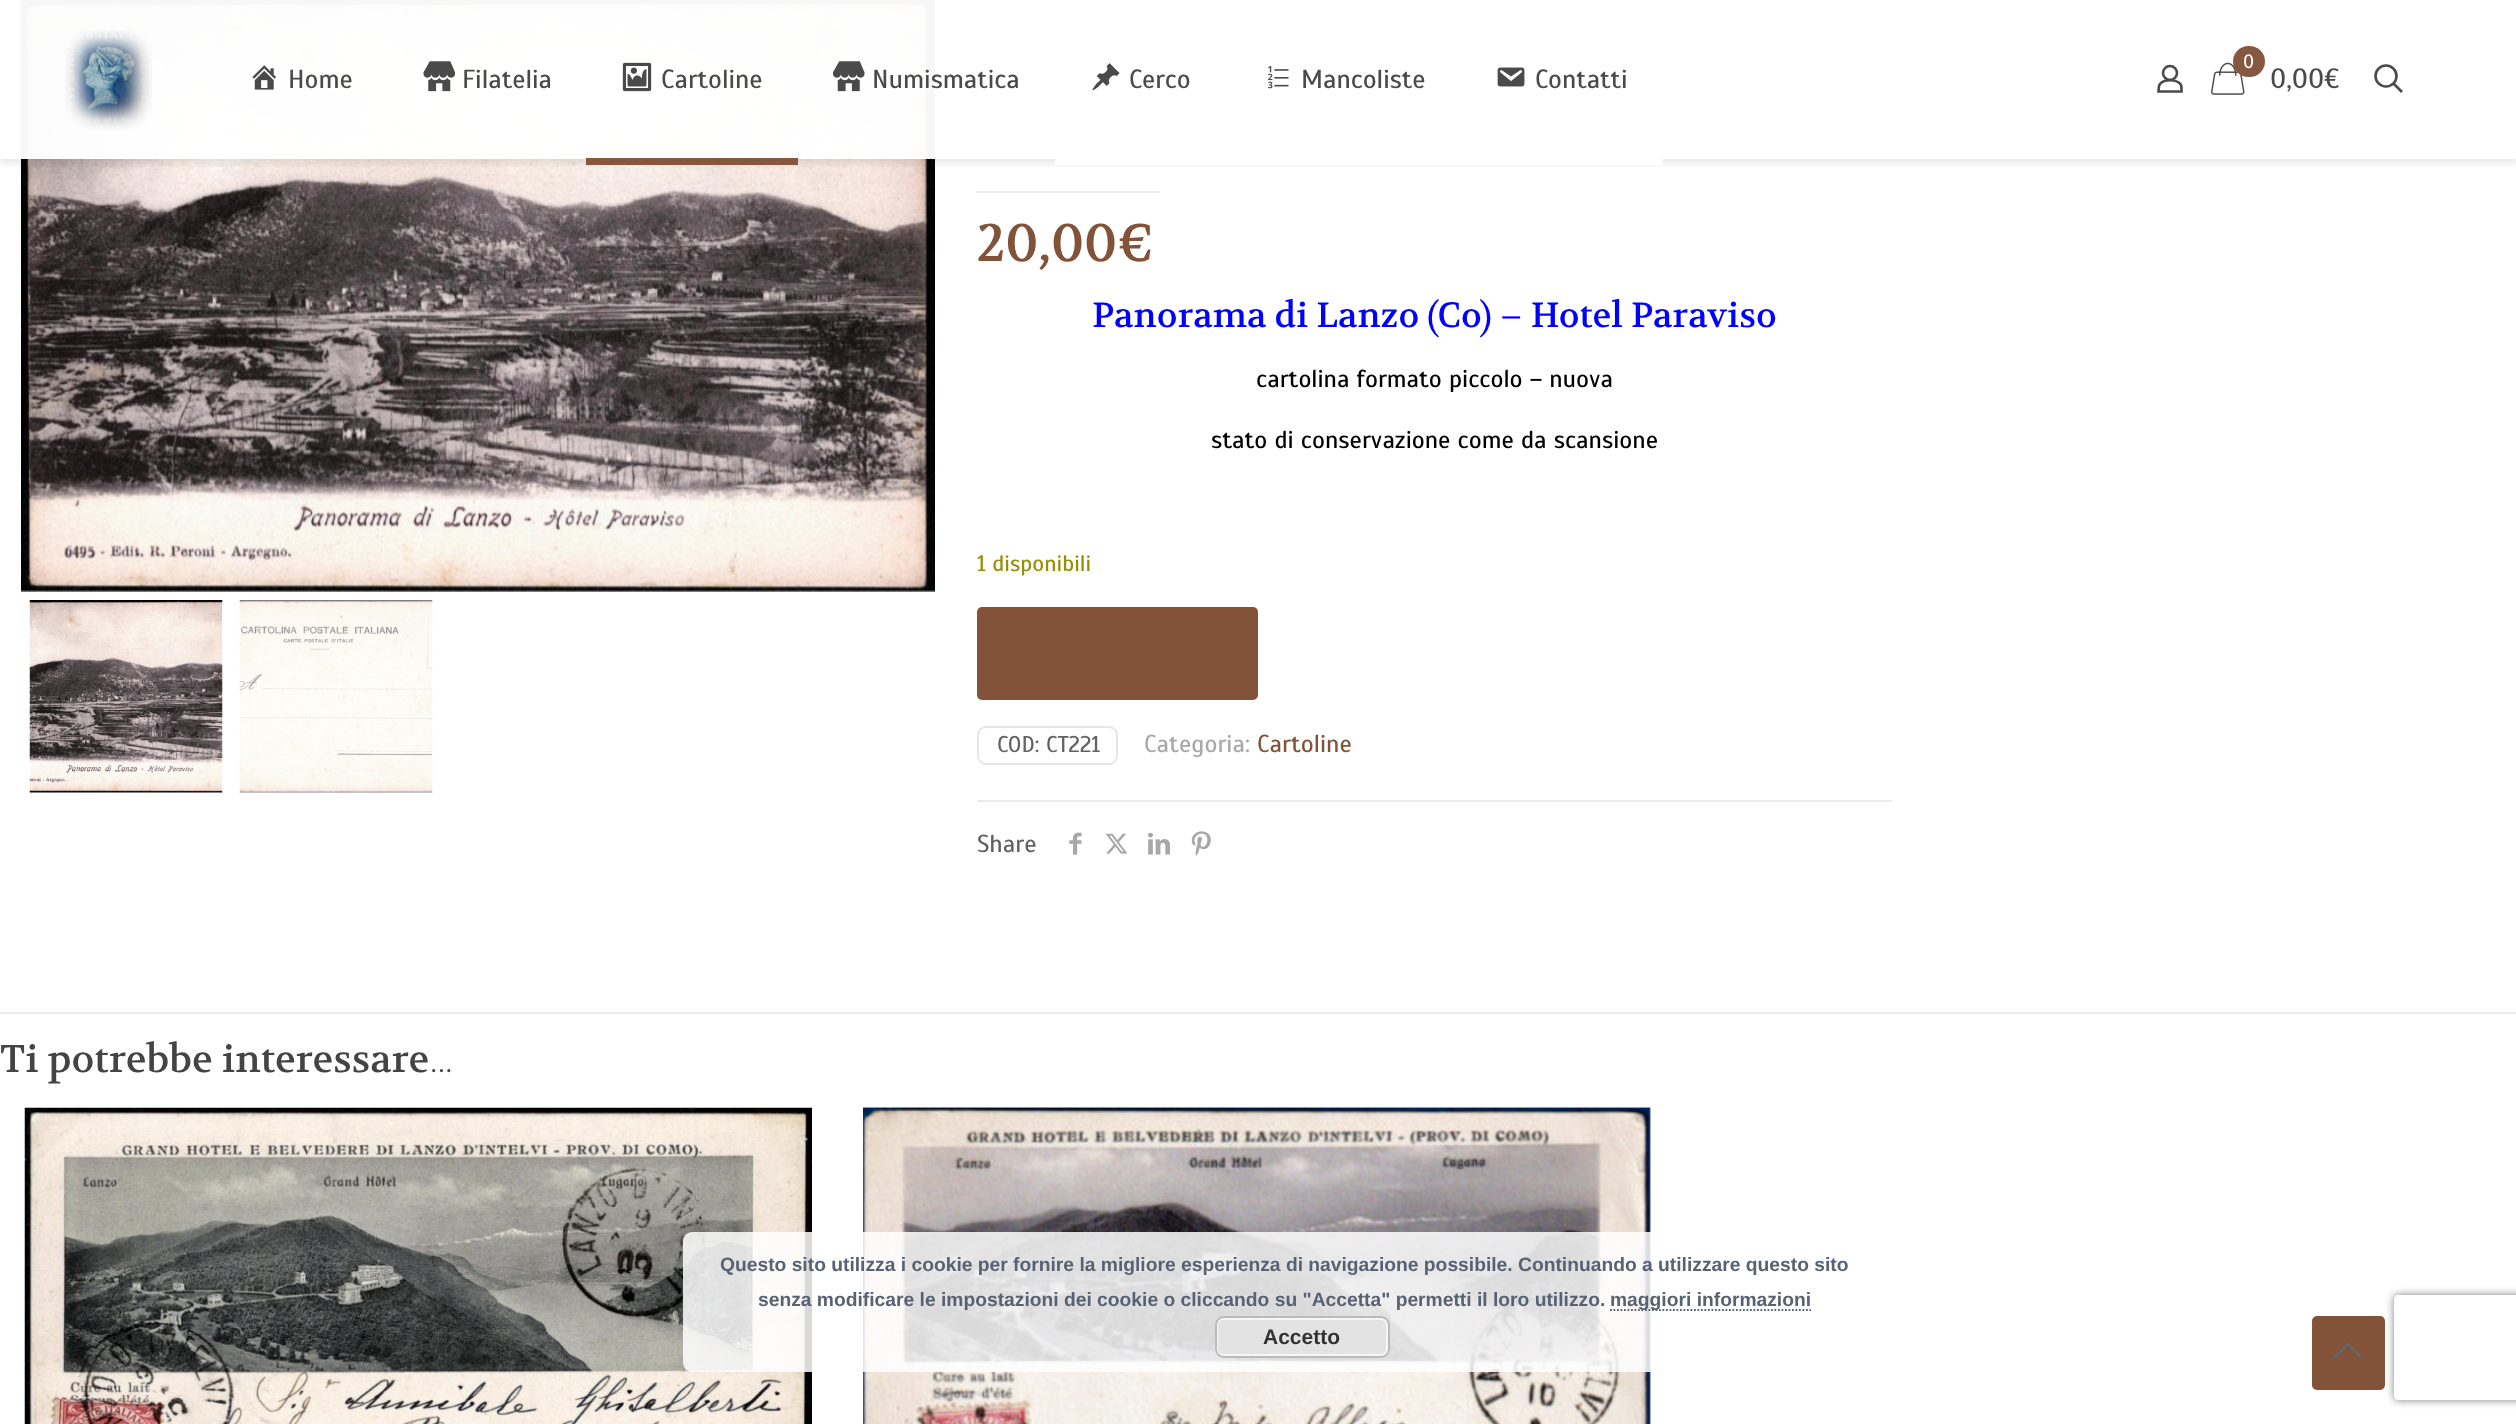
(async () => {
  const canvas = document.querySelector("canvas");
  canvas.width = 2516;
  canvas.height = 1424;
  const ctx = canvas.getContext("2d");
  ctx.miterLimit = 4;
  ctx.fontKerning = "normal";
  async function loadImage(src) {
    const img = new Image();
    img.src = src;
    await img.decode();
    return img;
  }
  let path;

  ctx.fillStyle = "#ffffff";
  ctx.fillRect(0, 0, 2516, 1424);
  ctx.drawImage(await loadImage("img/10.png"), 21, 0, 914, 592);
  ctx.save();
  ctx.beginPath();
  ctx.rect(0, 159, 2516, 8);
  ctx.clip();
  ctx.fillStyle = "rgba(0, 0, 0, 0.1)";
  ctx.filter = "blur(4.5px)";
  ctx.beginPath();
  ctx.rect(0, 4, 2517, 159);
  ctx.fill();
  ctx.filter = "none";
  ctx.restore();
  ctx.fillStyle = "rgba(255, 255, 255, 0.97)";
  ctx.fillRect(21, 0, 914, 159);
  ctx.drawImage(await loadImage("img/1.png"), 65, 30, 87, 100);
  ctx.drawImage(await loadImage("img/2.png"), 252, 65, 24, 25);
  ctx.drawImage(await loadImage("img/3.png"), 423, 61, 32, 31);
  ctx.drawImage(await loadImage("img/4.png"), 622, 62, 30, 30);
  ctx.fillStyle = "rgba(130, 83, 57, 0.97)";
  ctx.fillRect(586, 158, 212, 7);
  ctx.drawImage(await loadImage("img/5.png"), 833, 61, 32, 31);
  ctx.drawImage(await loadImage("img/6.png"), 1092, 63, 28, 28);
  ctx.fillStyle = "#ffffff";
  ctx.fillRect(1055, 159, 608, 6);
  ctx.drawImage(await loadImage("img/7.png"), 1268, 66, 21, 23);
  ctx.drawImage(await loadImage("img/8.png"), 1497, 67, 28, 20);
  ctx.beginPath();
  ctx.arc(2170, 73, 7, 0, Math.PI * 2);
  ctx.strokeStyle = "#4a4a4a";
  ctx.lineWidth = 2.6;
  ctx.stroke();
  path = new Path2D("M2181.5 87.5V91.5H2158.5L2159 86C2161.5 77.5 2181.5 78.5 2181.5 87.5Z");
  ctx.stroke(path);
  ctx.drawImage(await loadImage("img/9.png"), 2211, 62, 34, 33);
  ctx.fillStyle = "#86583f";
  ctx.beginPath();
  ctx.roundRect(2233, 46, 32, 31, 15.5);
  ctx.fill();
  ctx.beginPath();
  ctx.arc(2386, 76, 10.5, 0, Math.PI * 2);
  ctx.stroke();
  path = new Path2D("M2393.5 83.5L2402 92");
  ctx.stroke(path);
  ctx.drawImage(await loadImage("img/11.png"), 29, 600, 194, 193);
  ctx.drawImage(await loadImage("img/12.png"), 239, 600, 194, 193);
  ctx.fillStyle = "#ebebeb";
  ctx.fillRect(977, 191, 183, 2);
  ctx.fillStyle = "#825339";
  ctx.beginPath();
  ctx.roundRect(977, 607, 281, 93, 5);
  ctx.fill();
  ctx.beginPath();
  ctx.roundRect(978, 727, 139, 37, 8);
  ctx.strokeStyle = "#e6e6e6";
  ctx.lineWidth = 2;
  ctx.stroke();
  ctx.fillStyle = "#ebebeb";
  ctx.fillRect(977, 800, 915, 2);
  ctx.drawImage(await loadImage("img/13.png"), 1069, 832, 13, 23);
  ctx.drawImage(await loadImage("img/14.png"), 1105, 833, 23, 21);
  ctx.drawImage(await loadImage("img/15.png"), 1148, 832, 23, 23);
  ctx.drawImage(await loadImage("img/16.png"), 1191, 831, 20, 25);
  ctx.fillRect(0, 1012, 2516, 2);
  ctx.drawImage(await loadImage("img/17.png"), 24, 1107, 788, 317);
  ctx.drawImage(await loadImage("img/18.png"), 863, 1107, 788, 317);
  ctx.fillStyle = "rgba(255, 255, 255, 0.85)";
  ctx.beginPath();
  ctx.roundRect(683, 1232, 1205, 140, 9);
  ctx.fill();
  path = new Path2D("M1610 1310H1811");
  ctx.strokeStyle = "#576272";
  ctx.lineWidth = 1.8;
  ctx.setLineDash([1.75, 1.75]);
  ctx.stroke(path);
  ctx.fillStyle = "#e3e3e3";
  ctx.beginPath();
  ctx.roundRect(1215, 1316, 175, 42, 9);
  ctx.fill();
  ctx.beginPath();
  ctx.roundRect(1217, 1319, 170, 36, 6);
  ctx.strokeStyle = "#f6f6f6";
  ctx.lineWidth = 2;
  ctx.setLineDash([]);
  ctx.stroke();
  ctx.beginPath();
  ctx.roundRect(1216, 1317, 173, 40, 8);
  ctx.strokeStyle = "#bbbbbb";
  ctx.stroke();
  ctx.save();
  path = new Path2D("M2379 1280H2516V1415H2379ZM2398 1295H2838C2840 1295 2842 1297 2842 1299V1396C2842 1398 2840 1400 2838 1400H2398C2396 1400 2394 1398 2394 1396V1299C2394 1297 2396 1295 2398 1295Z");
  ctx.clip(path, "evenodd");
  ctx.fillStyle = "#808080";
  ctx.filter = "blur(4.5px)";
  ctx.beginPath();
  ctx.roundRect(2394, 1295, 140, 105, 4);
  ctx.fill();
  ctx.filter = "none";
  ctx.restore();
  ctx.fillStyle = "#825339";
  ctx.beginPath();
  ctx.roundRect(2312, 1316, 73, 74, 5);
  ctx.fill();
  ctx.drawImage(await loadImage("img/19.png"), 2332, 1343, 31, 16);
  ctx.font = "26.25px Scada";
  ctx.fillStyle = "#4a4a4a";
  for (const [text, x, y] of [
    ["Home", 288, 88],
    ["Filatelia", 462, 88],
    ["Cartoline", 661, 88],
    ["Numismatica", 872, 88],
    ["Cerco", 1129, 88],
    ["Mancoliste", 1301, 88],
    ["Contatti", 1535, 88],
  ]) {
    ctx.fillText(text, x, y);
  }
  ctx.font = "19.25px Scada";
  ctx.fillStyle = "#ffffff";
  ctx.fillText("0", 2243, 68);
  ctx.font = "28px Scada";
  ctx.fillStyle = "#4a4a4a";
  ctx.fillText("0,00€", 2270, 88);
  ctx.font = "52.5px Volkhov";
  ctx.fillStyle = "#825339";
  ctx.fillText("20,00€", 977, 261);
  ctx.font = "35px Volkhov";
  ctx.fillStyle = "#0000ff";
  ctx.fillText("Panorama di Lanzo (Co) – Hotel Paraviso", 1092, 327);
  ctx.font = "24.5px Scada";
  ctx.fillStyle = "#000000";
  ctx.fillText("cartolina formato piccolo – nuova", 1256, 387);
  ctx.fillText("stato di conservazione come da scansione", 1211, 448);
  ctx.font = "22.5px Scada";
  ctx.fillStyle = "#958e09";
  ctx.fillText("1 disponibili", 977, 571);
  ctx.font = "22.75px Scada";
  ctx.fillStyle = "#626262";
  ctx.fillText("COD: CT221", 997, 752);
  ctx.font = "24.5px Scada";
  ctx.fillStyle = "#a8a8a8";
  ctx.fillText("Categoria:", 1144, 752);
  ctx.fillStyle = "#825339";
  ctx.fillText("Cartoline", 1257, 752);
  ctx.fillStyle = "#626262";
  ctx.fillText("Share", 977, 852);
  ctx.font = "38.5px Volkhov";
  ctx.fillStyle = "#444444";
  ctx.fillText("Ti potrebbe interessare", 0, 1072);
  ctx.font = "300 38.5px Roboto";
  ctx.fillText("…", 429, 1072);
  ctx.font = "bold 19.25px Liberation Sans";
  ctx.fillStyle = "#576272";
  for (const [text, x, y] of [
    ["Questo sito utilizza i cookie per fornire la migliore esperienza di navigazione possibile. Continuando a utilizzare questo sito", 720, 1271],
    ["senza modificare le impostazioni dei cookie o cliccando su \"Accetta\" permetti il loro utilizzo.", 758, 1306],
    ["maggiori informazioni", 1610, 1306],
  ]) {
    ctx.fillText(text, x, y);
  }
  ctx.font = "bold 21px Liberation Sans";
  ctx.fillStyle = "#333333";
  ctx.fillText("Accetto", 1263, 1344);
})();
